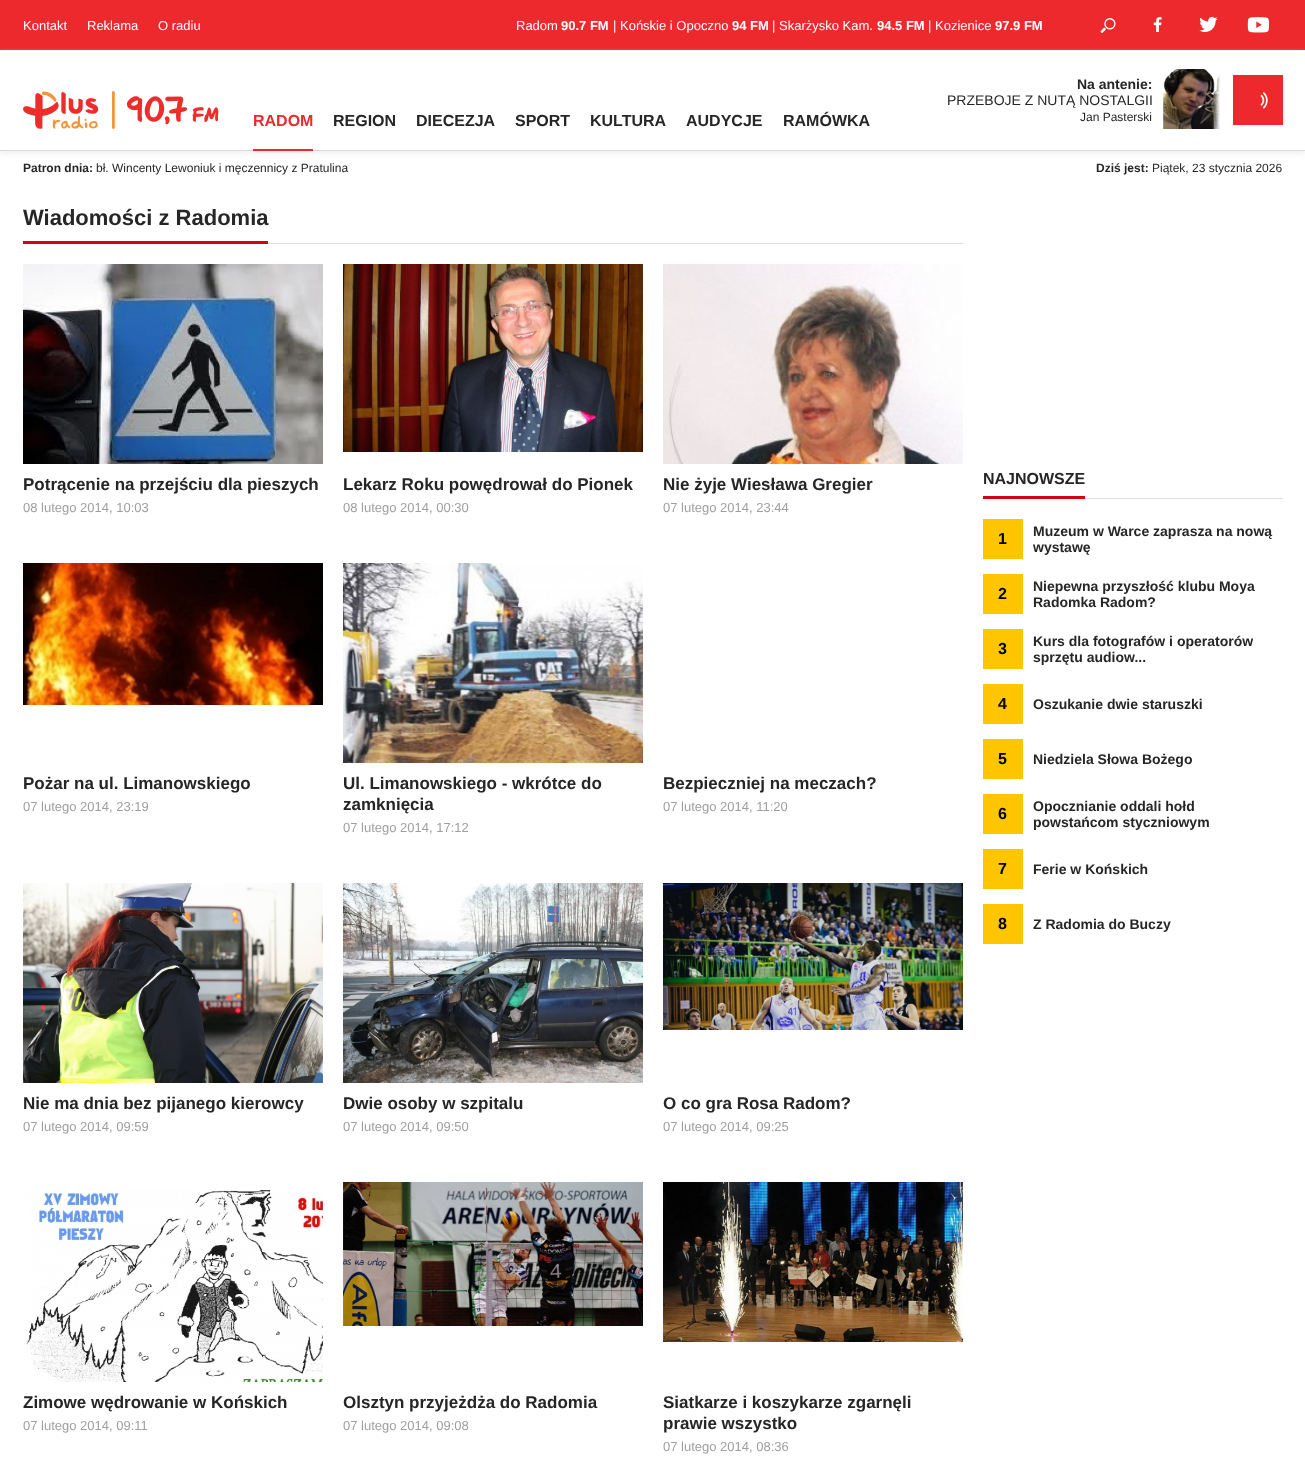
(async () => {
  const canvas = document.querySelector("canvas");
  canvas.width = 1305;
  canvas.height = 1470;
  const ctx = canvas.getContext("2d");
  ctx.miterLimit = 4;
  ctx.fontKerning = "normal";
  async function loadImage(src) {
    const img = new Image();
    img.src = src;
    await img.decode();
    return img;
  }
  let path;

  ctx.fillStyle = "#ffffff";
  ctx.fillRect(0, 0, 1305, 1470);
  ctx.fillStyle = "#ee292d";
  ctx.fillRect(0, 0, 1305, 50);
  ctx.drawImage(await loadImage("img/1.png"), 1100, 18, 16, 15);
  ctx.drawImage(await loadImage("img/2.png"), 1153, 17, 9, 15);
  ctx.drawImage(await loadImage("img/3.png"), 1199, 16, 19, 16);
  ctx.drawImage(await loadImage("img/4.png"), 1247, 17, 22, 16);
  ctx.save();
  path = new Path2D("M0 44H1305V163H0ZM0 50H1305V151H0Z");
  ctx.clip(path, "evenodd");
  ctx.fillStyle = "#f2f2f2";
  ctx.filter = "blur(2.5px)";
  ctx.beginPath();
  ctx.rect(0, 53, 1305, 101);
  ctx.fill();
  ctx.filter = "none";
  ctx.restore();
  ctx.fillStyle = "#d9d9d9";
  ctx.fillRect(0, 150, 1305, 1);
  ctx.drawImage(await loadImage("img/5.png"), 23, 91, 196, 38);
  ctx.fillStyle = "#ee292d";
  ctx.fillRect(253, 149, 60, 2);
  ctx.drawImage(await loadImage("img/6.png"), 1163, 69, 57, 60);
  ctx.fillRect(1233, 75, 50, 50);
  ctx.drawImage(await loadImage("img/7.png"), 1260, 92, 8, 17);
  ctx.fillStyle = "#dedede";
  ctx.fillRect(268, 243, 695, 1);
  ctx.fillStyle = "#d3030f";
  ctx.fillRect(23, 241, 245, 3);
  ctx.drawImage(await loadImage("img/8.png"), 23, 264, 300, 200);
  ctx.drawImage(await loadImage("img/9.png"), 343, 264, 300, 188);
  ctx.drawImage(await loadImage("img/10.png"), 663, 264, 300, 200);
  ctx.drawImage(await loadImage("img/11.png"), 23, 563, 300, 142);
  ctx.drawImage(await loadImage("img/12.png"), 343, 563, 300, 200);
  ctx.drawImage(await loadImage("img/13.png"), 23, 883, 300, 200);
  ctx.drawImage(await loadImage("img/14.png"), 343, 883, 300, 200);
  ctx.drawImage(await loadImage("img/15.png"), 663, 883, 300, 147);
  ctx.drawImage(await loadImage("img/16.png"), 26, 1189, 297, 193);
  ctx.drawImage(await loadImage("img/17.png"), 343, 1182, 300, 144);
  ctx.drawImage(await loadImage("img/18.png"), 663, 1182, 300, 160);
  for (const [x, y, w, h, color] of [
    [1085, 498, 198, 1, "#dedede"],
    [983, 496, 102, 3, "#d3030f"],
    [983, 519, 40, 40, "#ffc600"],
    [983, 574, 40, 40, "#ffc600"],
    [983, 629, 40, 40, "#ffc600"],
    [983, 684, 40, 40, "#ffc600"],
    [983, 739, 40, 40, "#ffc600"],
    [983, 794, 40, 40, "#ffc600"],
    [983, 849, 40, 40, "#ffc600"],
    [983, 904, 40, 40, "#ffc600"],
  ]) {
    ctx.fillStyle = color;
    ctx.fillRect(x, y, w, h);
  }
  ctx.font = "13px Liberation Sans";
  ctx.fillStyle = "#ffffff";
  for (const [text, x, y] of [
    ["Kontakt", 23, 30],
    ["Reklama", 87, 30],
    ["O radiu", 158, 30],
    ["Radom", 516, 30],
  ]) {
    ctx.fillText(text, x, y);
  }
  ctx.font = "bold 13px Liberation Sans";
  ctx.fillText("90.7 FM", 561, 30);
  ctx.font = "13px Liberation Sans";
  ctx.fillText("| Końskie i Opoczno", 613, 30);
  ctx.font = "bold 13px Liberation Sans";
  ctx.fillText("94 FM", 732, 30);
  ctx.font = "13px Liberation Sans";
  ctx.fillText("| Skarżysko Kam.", 772, 30);
  ctx.font = "bold 13px Liberation Sans";
  ctx.fillText("94.5 FM", 877, 30);
  ctx.font = "13px Liberation Sans";
  ctx.fillText("| Kozienice", 928, 30);
  ctx.font = "bold 13px Liberation Sans";
  ctx.fillText("97.9 FM", 995, 30);
  ctx.font = "bold 16px Liberation Sans";
  ctx.fillStyle = "#ee292d";
  ctx.fillText("RADOM", 253, 126);
  ctx.fillStyle = "#262626";
  for (const [text, x, y] of [
    ["REGION", 333, 126],
    ["DIECEZJA", 416, 126],
    ["SPORT", 515, 126],
    ["KULTURA", 590, 126],
    ["AUDYCJE", 686, 126],
    ["RAMÓWKA", 783, 126],
  ]) {
    ctx.fillText(text, x, y);
  }
  ctx.font = "bold 14px Liberation Sans";
  ctx.fillText("Na antenie:", 1077, 89);
  ctx.font = "14px Liberation Sans";
  ctx.fillText("PRZEBOJE Z NUTĄ NOSTALGII", 947, 105);
  ctx.font = "12px Liberation Sans";
  ctx.fillText("Jan Pasterski", 1080, 121);
  ctx.font = "bold 12px Liberation Sans";
  ctx.fillText("Patron dnia:", 23, 172);
  ctx.font = "12px Liberation Sans";
  ctx.fillText("bł. Wincenty Lewoniuk i męczennicy z Pratulina", 96, 172);
  ctx.font = "bold 12px Liberation Sans";
  ctx.fillText("Dziś jest:", 1096, 172);
  ctx.font = "12px Liberation Sans";
  ctx.fillText("Piątek, 23 stycznia 2026", 1152, 172);
  ctx.font = "bold 22px Liberation Sans";
  ctx.fillText("Wiadomości z Radomia", 23, 225);
  ctx.font = "bold 17px Liberation Sans";
  ctx.fillText("Potrącenie na przejściu dla pieszych", 23, 490);
  ctx.font = "13px Liberation Sans";
  ctx.fillStyle = "#9f9f9f";
  ctx.fillText("08 lutego 2014, 10:03", 23, 512);
  ctx.font = "bold 17px Liberation Sans";
  ctx.fillStyle = "#262626";
  ctx.fillText("Lekarz Roku powędrował do Pionek", 343, 490);
  ctx.font = "13px Liberation Sans";
  ctx.fillStyle = "#9f9f9f";
  ctx.fillText("08 lutego 2014, 00:30", 343, 512);
  ctx.font = "bold 17px Liberation Sans";
  ctx.fillStyle = "#262626";
  ctx.fillText("Nie żyje Wiesława Gregier", 663, 490);
  ctx.font = "13px Liberation Sans";
  ctx.fillStyle = "#9f9f9f";
  ctx.fillText("07 lutego 2014, 23:44", 663, 512);
  ctx.font = "bold 17px Liberation Sans";
  ctx.fillStyle = "#262626";
  ctx.fillText("Pożar na ul. Limanowskiego", 23, 789);
  ctx.font = "13px Liberation Sans";
  ctx.fillStyle = "#9f9f9f";
  ctx.fillText("07 lutego 2014, 23:19", 23, 811);
  ctx.font = "bold 17px Liberation Sans";
  ctx.fillStyle = "#262626";
  ctx.fillText("Ul. Limanowskiego - wkrótce do", 343, 789);
  ctx.fillText("zamknięcia", 343, 810);
  ctx.font = "13px Liberation Sans";
  ctx.fillStyle = "#9f9f9f";
  ctx.fillText("07 lutego 2014, 17:12", 343, 832);
  ctx.font = "bold 17px Liberation Sans";
  ctx.fillStyle = "#262626";
  ctx.fillText("Bezpieczniej na meczach?", 663, 789);
  ctx.font = "13px Liberation Sans";
  ctx.fillStyle = "#9f9f9f";
  ctx.fillText("07 lutego 2014, 11:20", 663, 811);
  ctx.font = "bold 17px Liberation Sans";
  ctx.fillStyle = "#262626";
  ctx.fillText("Nie ma dnia bez pijanego kierowcy", 23, 1109);
  ctx.font = "13px Liberation Sans";
  ctx.fillStyle = "#9f9f9f";
  ctx.fillText("07 lutego 2014, 09:59", 23, 1131);
  ctx.font = "bold 17px Liberation Sans";
  ctx.fillStyle = "#262626";
  ctx.fillText("Dwie osoby w szpitalu", 343, 1109);
  ctx.font = "13px Liberation Sans";
  ctx.fillStyle = "#9f9f9f";
  ctx.fillText("07 lutego 2014, 09:50", 343, 1131);
  ctx.font = "bold 17px Liberation Sans";
  ctx.fillStyle = "#262626";
  ctx.fillText("O co gra Rosa Radom?", 663, 1109);
  ctx.font = "13px Liberation Sans";
  ctx.fillStyle = "#9f9f9f";
  ctx.fillText("07 lutego 2014, 09:25", 663, 1131);
  ctx.font = "bold 17px Liberation Sans";
  ctx.fillStyle = "#262626";
  ctx.fillText("Zimowe wędrowanie w Końskich", 23, 1408);
  ctx.font = "13px Liberation Sans";
  ctx.fillStyle = "#9f9f9f";
  ctx.fillText("07 lutego 2014, 09:11", 23, 1430);
  ctx.font = "bold 17px Liberation Sans";
  ctx.fillStyle = "#262626";
  ctx.fillText("Olsztyn przyjeżdża do Radomia", 343, 1408);
  ctx.font = "13px Liberation Sans";
  ctx.fillStyle = "#9f9f9f";
  ctx.fillText("07 lutego 2014, 09:08", 343, 1430);
  ctx.font = "bold 17px Liberation Sans";
  ctx.fillStyle = "#262626";
  ctx.fillText("Siatkarze i koszykarze zgarnęli", 663, 1408);
  ctx.fillText("prawie wszystko", 663, 1429);
  ctx.font = "13px Liberation Sans";
  ctx.fillStyle = "#9f9f9f";
  ctx.fillText("07 lutego 2014, 08:36", 663, 1451);
  ctx.font = "bold 16px Liberation Sans";
  ctx.fillStyle = "#262626";
  ctx.fillText("NAJNOWSZE", 983, 484);
  ctx.fillStyle = "#000000";
  ctx.fillText("1", 998, 544);
  ctx.font = "bold 14px Liberation Sans";
  ctx.fillStyle = "#262626";
  ctx.fillText("Muzeum w Warce zaprasza na nową", 1033, 536);
  ctx.fillText("wystawę", 1033, 552);
  ctx.font = "bold 16px Liberation Sans";
  ctx.fillStyle = "#000000";
  ctx.fillText("2", 998, 599);
  ctx.font = "bold 14px Liberation Sans";
  ctx.fillStyle = "#262626";
  ctx.fillText("Niepewna przyszłość klubu Moya", 1033, 591);
  ctx.fillText("Radomka Radom?", 1033, 607);
  ctx.font = "bold 16px Liberation Sans";
  ctx.fillStyle = "#000000";
  ctx.fillText("3", 998, 654);
  ctx.font = "bold 14px Liberation Sans";
  ctx.fillStyle = "#262626";
  ctx.fillText("Kurs dla fotografów i operatorów", 1033, 646);
  ctx.fillText("sprzętu audiow...", 1033, 662);
  ctx.font = "bold 16px Liberation Sans";
  ctx.fillStyle = "#000000";
  ctx.fillText("4", 998, 709);
  ctx.font = "bold 14px Liberation Sans";
  ctx.fillStyle = "#262626";
  ctx.fillText("Oszukanie dwie staruszki", 1033, 709);
  ctx.font = "bold 16px Liberation Sans";
  ctx.fillStyle = "#000000";
  ctx.fillText("5", 998, 764);
  ctx.font = "bold 14px Liberation Sans";
  ctx.fillStyle = "#262626";
  ctx.fillText("Niedziela Słowa Bożego", 1033, 764);
  ctx.font = "bold 16px Liberation Sans";
  ctx.fillStyle = "#000000";
  ctx.fillText("6", 998, 819);
  ctx.font = "bold 14px Liberation Sans";
  ctx.fillStyle = "#262626";
  ctx.fillText("Opocznianie oddali hołd", 1033, 811);
  ctx.fillText("powstańcom styczniowym", 1033, 827);
  ctx.font = "bold 16px Liberation Sans";
  ctx.fillStyle = "#000000";
  ctx.fillText("7", 998, 874);
  ctx.font = "bold 14px Liberation Sans";
  ctx.fillStyle = "#262626";
  ctx.fillText("Ferie w Końskich", 1033, 874);
  ctx.font = "bold 16px Liberation Sans";
  ctx.fillStyle = "#000000";
  ctx.fillText("8", 998, 929);
  ctx.font = "bold 14px Liberation Sans";
  ctx.fillStyle = "#262626";
  ctx.fillText("Z Radomia do Buczy", 1033, 929);
})();
